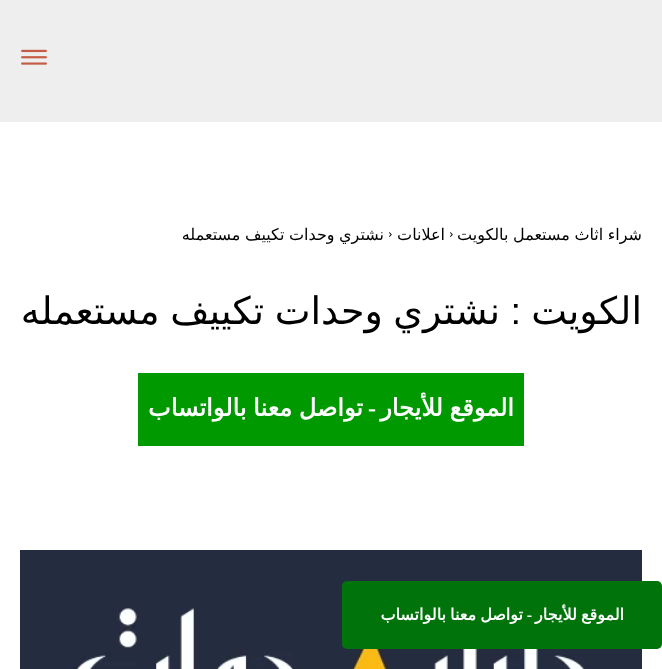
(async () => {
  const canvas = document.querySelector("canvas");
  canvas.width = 662;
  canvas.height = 669;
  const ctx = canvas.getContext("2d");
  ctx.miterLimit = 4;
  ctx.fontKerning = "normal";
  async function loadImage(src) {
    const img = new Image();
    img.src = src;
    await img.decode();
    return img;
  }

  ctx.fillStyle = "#ffffff";
  ctx.fillRect(0, 0, 662, 669);
  ctx.fillStyle = "#eeeeee";
  ctx.fillRect(0, 0, 662, 122);
  ctx.drawImage(await loadImage("img/1.png"), 21, 49, 26, 16);
  ctx.drawImage(await loadImage("img/2.png"), 450, 232, 3, 5);
  ctx.drawImage(await loadImage("img/2.png"), 389, 232, 3, 5);
  ctx.fillStyle = "#009900";
  ctx.fillRect(138, 373, 386, 73);
  ctx.drawImage(await loadImage("img/3.png"), 20, 550, 622, 119);
  ctx.fillStyle = "#01730b";
  ctx.beginPath();
  ctx.roundRect(342, 581, 320, 68, 5);
  ctx.fill();
  ctx.wordSpacing = "-0.5px";
  ctx.direction = "rtl";
  ctx.font = "16px DejaVu Sans";
  ctx.fillStyle = "#000000";
  ctx.fillText("شراء اثاث مستعمل بالكويت", 642, 240);
  ctx.wordSpacing = "0px";
  ctx.fillText("اعلانات", 445, 240);
  ctx.wordSpacing = "-0.5px";
  ctx.fillText("نشتري وحدات تكييف مستعمله", 384, 240);
  ctx.wordSpacing = "0px";
  ctx.font = "38px DejaVu Sans";
  ctx.fillText("الكويت", 642, 324);
  ctx.font = "38px Liberation Sans";
  ctx.fillText(":", 521, 324);
  ctx.wordSpacing = "-1.5px";
  ctx.font = "38px DejaVu Sans";
  ctx.fillText("نشتري وحدات تكييف مستعمله", 500, 324);
  ctx.wordSpacing = "-1px";
  ctx.font = "bold 24px DejaVu Sans";
  ctx.fillStyle = "#ffffff";
  ctx.fillText("الموقع للأيجار", 514, 416);
  ctx.wordSpacing = "0px";
  ctx.font = "bold 24px Liberation Serif";
  ctx.fillText("-", 376, 416);
  ctx.wordSpacing = "-1px";
  ctx.font = "bold 24px DejaVu Sans";
  ctx.fillText("تواصل معنا بالواتساب", 363, 416);
  ctx.font = "bold 16px DejaVu Sans";
  ctx.fillText("الموقع للأيجار", 624, 620);
  ctx.wordSpacing = "0px";
  ctx.font = "bold 16px Liberation Serif";
  ctx.fillText("-", 532, 620);
  ctx.wordSpacing = "-1px";
  ctx.font = "bold 16px DejaVu Sans";
  ctx.fillText("تواصل معنا بالواتساب", 523, 620);
})();
